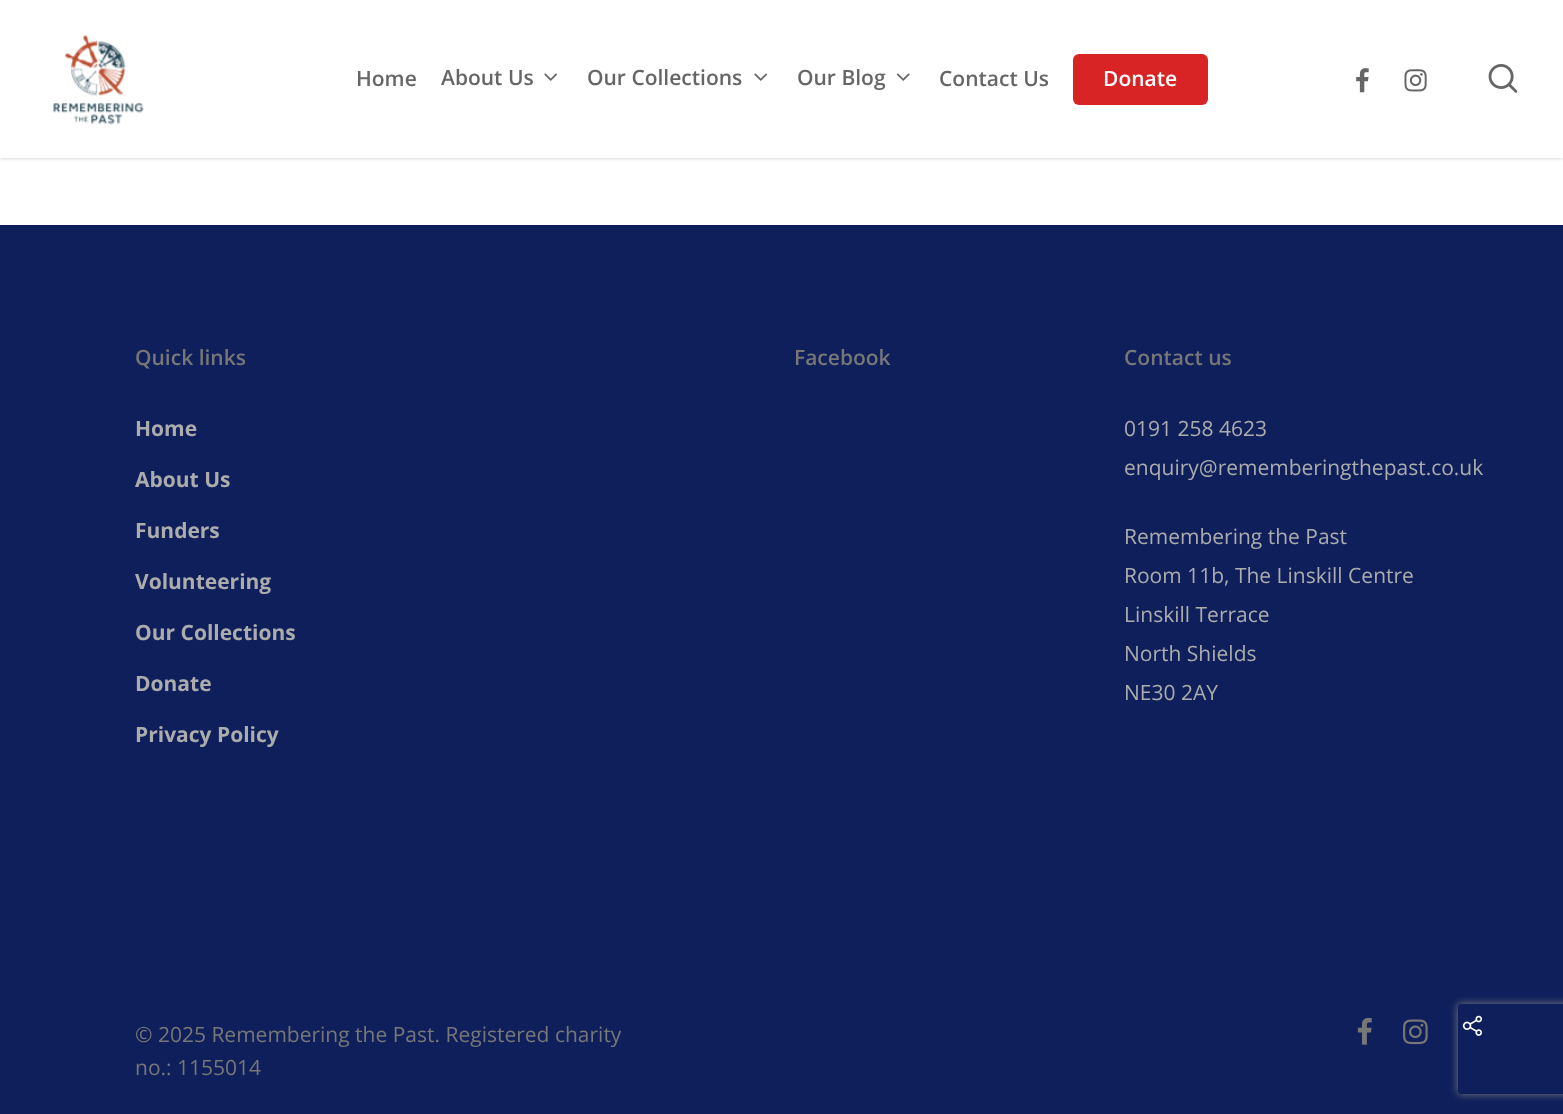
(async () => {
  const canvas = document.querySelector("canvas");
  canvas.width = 1563;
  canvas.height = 1114;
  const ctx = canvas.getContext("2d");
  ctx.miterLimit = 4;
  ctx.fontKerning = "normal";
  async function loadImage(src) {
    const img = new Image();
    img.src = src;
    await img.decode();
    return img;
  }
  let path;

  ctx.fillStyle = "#ffffff";
  ctx.fillRect(0, 0, 1563, 1114);
  ctx.fillStyle = "rgba(0, 0, 0, 0.22)";
  ctx.filter = "blur(2px)";
  ctx.beginPath();
  ctx.rect(0, 0, 1563, 158);
  ctx.fill();
  ctx.filter = "none";
  ctx.fillStyle = "#ffffff";
  ctx.fillRect(0, 0, 1563, 158);
  ctx.drawImage(await loadImage("img/1.png"), 53, 34, 92, 91);
  ctx.drawImage(await loadImage("img/2.png"), 544, 73, 14, 8);
  ctx.drawImage(await loadImage("img/2.png"), 754, 73, 14, 8);
  ctx.drawImage(await loadImage("img/3.png"), 896, 73, 14, 8);
  ctx.fillStyle = "#d82425";
  ctx.beginPath();
  ctx.roundRect(1073, 54, 135, 51, 6);
  ctx.fill();
  ctx.drawImage(await loadImage("img/4.png"), 1356, 68, 13, 25);
  ctx.drawImage(await loadImage("img/5.png"), 1404, 69, 23, 23);
  ctx.drawImage(await loadImage("img/6.png"), 1488, 64, 30, 29);
  ctx.fillStyle = "#0e1f5b";
  ctx.fillRect(0, 225, 1563, 889);
  ctx.drawImage(await loadImage("img/7.png"), 1357, 1017, 15, 28);
  ctx.drawImage(await loadImage("img/8.png"), 1403, 1019, 25, 26);
  ctx.drawImage(await loadImage("img/9.png"), 1462, 1015, 20, 21);
  ctx.save();
  path = new Path2D("M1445 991H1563V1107H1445ZM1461 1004H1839C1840.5 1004 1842 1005.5 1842 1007V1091C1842 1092.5 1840.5 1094 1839 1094H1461C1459.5 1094 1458 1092.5 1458 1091V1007C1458 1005.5 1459.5 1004 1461 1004Z");
  ctx.clip(path, "evenodd");
  ctx.fillStyle = "#808080";
  ctx.filter = "blur(4px)";
  ctx.beginPath();
  ctx.roundRect(1458, 1004, 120, 90, 3);
  ctx.fill();
  ctx.filter = "none";
  ctx.restore();
  ctx.font = "600 21px Open Sans";
  ctx.fillStyle = "#666666";
  for (const [text, x, y] of [
    ["Home", 356, 86],
    ["About Us", 441, 85],
    ["Our Collections", 587, 85],
    ["Our Blog", 797, 85],
    ["Contact Us", 939, 86],
  ]) {
    ctx.fillText(text, x, y);
  }
  ctx.fillStyle = "#ffffff";
  ctx.fillText("Donate", 1103, 86);
  ctx.fillStyle = "#777777";
  ctx.fillText("Quick links", 135, 365);
  ctx.font = "bold 21px Open Sans";
  ctx.fillStyle = "#acacac";
  for (const [text, x, y] of [
    ["Home", 135, 436],
    ["About Us", 135, 487],
    ["Funders", 135, 538],
    ["Volunteering", 135, 589],
    ["Our Collections", 135, 640],
    ["Donate", 135, 691],
    ["Privacy Policy", 135, 742],
  ]) {
    ctx.fillText(text, x, y);
  }
  ctx.font = "600 21px Open Sans";
  ctx.fillStyle = "#777777";
  ctx.fillText("Facebook", 794, 365);
  ctx.fillText("Contact us", 1124, 365);
  ctx.font = "21px Open Sans";
  ctx.fillStyle = "#acacac";
  for (const [text, x, y] of [
    ["0191 258 4623", 1124, 436],
    ["enquiry@rememberingthepast.co.uk", 1124, 475],
    ["Remembering the Past", 1124, 544],
    ["Room 11b, The Linskill Centre", 1124, 583],
    ["Linskill Terrace", 1124, 622],
    ["North Shields", 1124, 661],
    ["NE30 2AY", 1124, 700],
  ]) {
    ctx.fillText(text, x, y);
  }
  ctx.fillStyle = "#777777";
  ctx.fillText("© 2025 Remembering the Past. Registered charity", 135, 1042);
  ctx.fillText("no.: 1155014", 135, 1075);
})();
